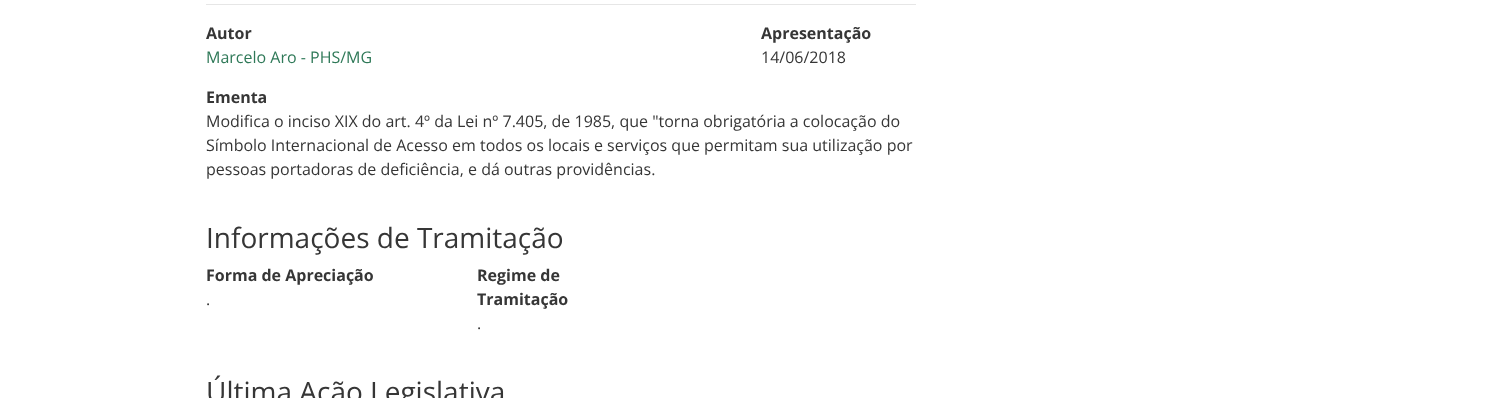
(async () => {
  const canvas = document.querySelector("canvas");
  canvas.width = 1492;
  canvas.height = 398;
  const ctx = canvas.getContext("2d");
  ctx.miterLimit = 4;
  ctx.fontKerning = "normal";

  ctx.fillStyle = "#ffffff";
  ctx.fillRect(0, 0, 1492, 398);
  ctx.fillStyle = "#e6e6e6";
  ctx.fillRect(206, 4, 710, 1);
  ctx.font = "bold 16px Open Sans";
  ctx.fillStyle = "#363636";
  ctx.fillText("Autor", 206, 39);
  ctx.font = "16px Open Sans";
  ctx.fillStyle = "#2f7958";
  ctx.fillText("Marcelo Aro - PHS/MG", 206, 63);
  ctx.font = "bold 16px Open Sans";
  ctx.fillStyle = "#363636";
  ctx.fillText("Apresentação", 761, 39);
  ctx.font = "16px Open Sans";
  ctx.fillText("14/06/2018", 761, 63);
  ctx.font = "bold 16px Open Sans";
  ctx.fillText("Ementa", 206, 103);
  ctx.font = "16px Open Sans";
  for (const [text, x, y] of [
    ["Modifica o inciso XIX do art. 4º da Lei nº 7.405, de 1985, que \"torna obrigatória a colocação do", 206, 127],
    ["Símbolo Internacional de Acesso em todos os locais e serviços que permitam sua utilização por", 206, 151],
    ["pessoas portadoras de deficiência, e dá outras providências.", 206, 175],
  ]) {
    ctx.fillText(text, x, y);
  }
  ctx.font = "28px Open Sans";
  ctx.fillText("Informações de Tramitação", 206, 248);
  ctx.font = "bold 16px Open Sans";
  ctx.fillText("Forma de Apreciação", 206, 281);
  ctx.font = "16px Open Sans";
  ctx.fillText(".", 206, 305);
  ctx.font = "bold 16px Open Sans";
  ctx.fillText("Regime de", 477, 281);
  ctx.fillText("Tramitação", 477, 305);
  ctx.font = "16px Open Sans";
  ctx.fillText(".", 477, 329);
  ctx.font = "28px Open Sans";
  ctx.fillText("Última Ação Legislativa", 206, 402);
})();
